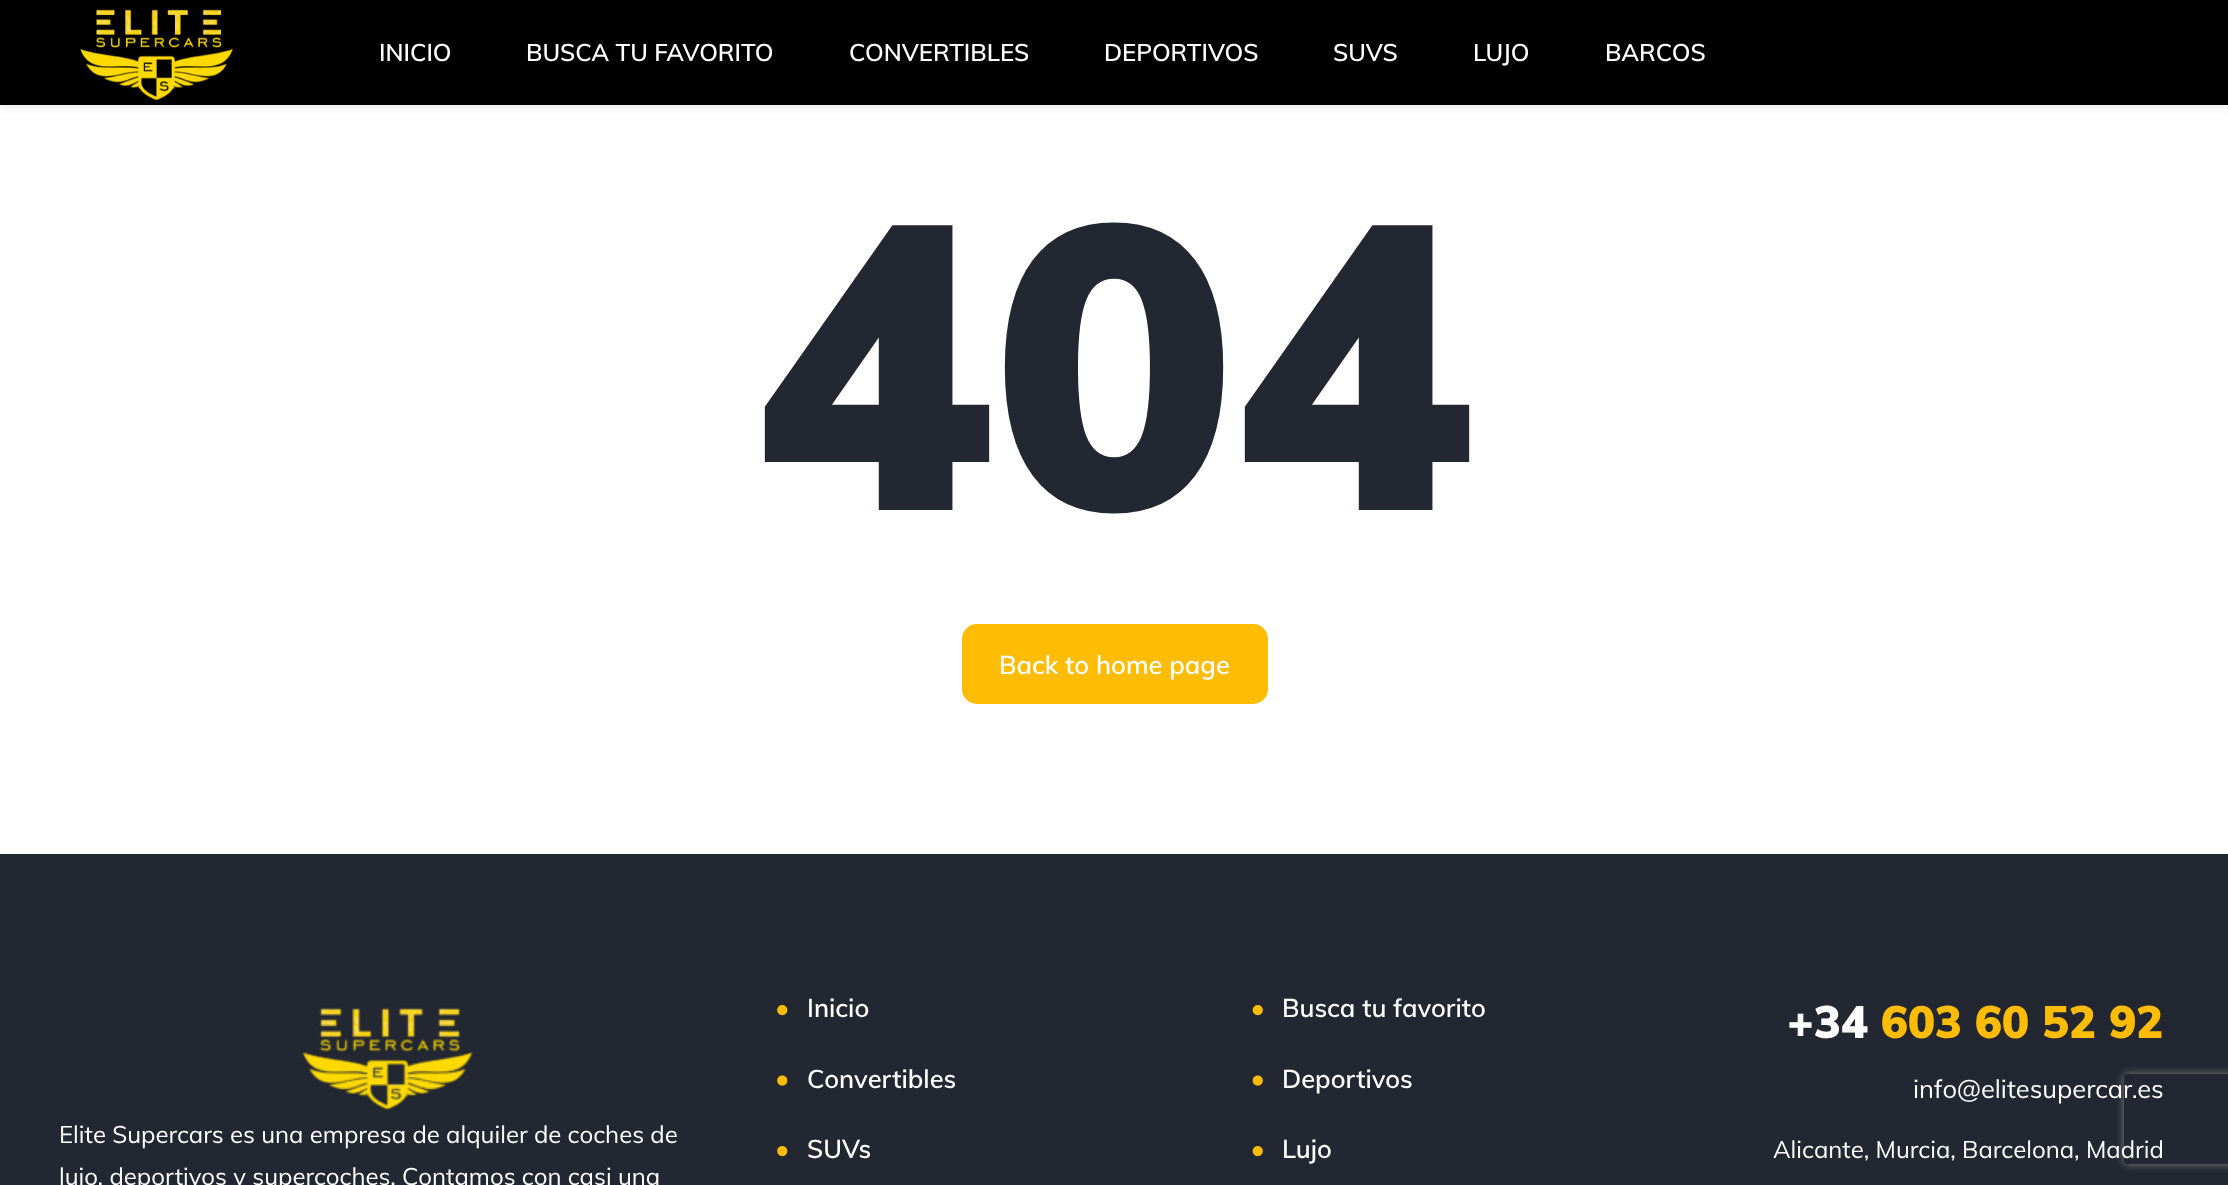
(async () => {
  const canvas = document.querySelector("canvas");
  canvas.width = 2228;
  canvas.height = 1185;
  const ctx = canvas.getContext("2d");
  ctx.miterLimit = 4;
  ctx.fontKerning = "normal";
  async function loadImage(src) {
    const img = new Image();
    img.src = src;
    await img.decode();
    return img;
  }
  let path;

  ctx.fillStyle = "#ffffff";
  ctx.fillRect(0, 0, 2228, 1185);
  ctx.fillStyle = "rgba(196, 196, 196, 0.34)";
  ctx.filter = "blur(5px)";
  ctx.beginPath();
  ctx.rect(0, 3, 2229, 105);
  ctx.fill();
  ctx.filter = "none";
  ctx.fillStyle = "#000000";
  ctx.fillRect(0, 0, 2228, 105);
  ctx.drawImage(await loadImage("img/1.png"), 80, 9, 153, 92);
  ctx.fillStyle = "#ffbc05";
  ctx.beginPath();
  ctx.roundRect(962, 624, 306, 80, 15);
  ctx.fill();
  ctx.fillStyle = "#222732";
  ctx.fillRect(0, 854, 2228, 331);
  ctx.drawImage(await loadImage("img/2.png"), 302, 1007, 171, 104);
  ctx.drawImage(await loadImage("img/3.png"), 777, 1005, 11, 11);
  ctx.drawImage(await loadImage("img/4.png"), 1252, 1005, 11, 11);
  ctx.drawImage(await loadImage("img/5.png"), 777, 1075, 11, 11);
  ctx.drawImage(await loadImage("img/6.png"), 1252, 1075, 11, 11);
  ctx.drawImage(await loadImage("img/3.png"), 777, 1146, 11, 11);
  ctx.drawImage(await loadImage("img/4.png"), 1252, 1146, 11, 11);
  ctx.save();
  path = new Path2D("M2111 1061H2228V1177H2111ZM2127 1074H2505C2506.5 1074 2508 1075.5 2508 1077V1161C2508 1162.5 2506.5 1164 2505 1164H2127C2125.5 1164 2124 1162.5 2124 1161V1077C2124 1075.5 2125.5 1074 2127 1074Z");
  ctx.clip(path, "evenodd");
  ctx.fillStyle = "#808080";
  ctx.filter = "blur(4px)";
  ctx.beginPath();
  ctx.roundRect(2124, 1074, 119, 90, 3);
  ctx.fill();
  ctx.filter = "none";
  ctx.restore();
  ctx.font = "600 24px Muli";
  ctx.fillStyle = "#ffffff";
  for (const [text, x, y] of [
    ["INICIO", 379, 61],
    ["BUSCA TU FAVORITO", 526, 61],
    ["CONVERTIBLES", 849, 61],
    ["DEPORTIVOS", 1104, 61],
    ["SUVS", 1333, 61],
    ["LUJO", 1473, 61],
    ["BARCOS", 1605, 61],
  ]) {
    ctx.fillText(text, x, y);
  }
  ctx.font = "900 400px Muli";
  ctx.fillStyle = "#222732";
  ctx.fillText("404", 754, 510);
  ctx.font = "600 25.5px Muli";
  ctx.fillStyle = "#ffffff";
  ctx.fillText("Back to home page", 999, 674);
  ctx.font = "24px Muli";
  ctx.fillText("Elite Supercars es una empresa de alquiler de coches de", 59, 1143);
  ctx.fillText("lujo, deportivos y supercoches. Contamos con casi una", 59, 1185);
  ctx.font = "600 25.5px Muli";
  for (const [text, x, y] of [
    ["Inicio", 807, 1017],
    ["Busca tu favorito", 1282, 1017],
    ["Convertibles", 807, 1088],
    ["Deportivos", 1282, 1088],
    ["SUVs", 807, 1158],
    ["Lujo", 1282, 1158],
  ]) {
    ctx.fillText(text, x, y);
  }
  ctx.font = "900 45px Muli";
  ctx.fillText("+34", 1787, 1038);
  ctx.fillStyle = "#ffbc05";
  ctx.fillText("603 60 52 92", 1881, 1038);
  ctx.font = "25.5px Muli";
  ctx.fillStyle = "#ffffff";
  ctx.fillText("info@elitesupercar.es", 1913, 1098);
  ctx.font = "24px Muli";
  ctx.fillText("Alicante, Murcia, Barcelona, Madrid", 1773, 1158);
})();
